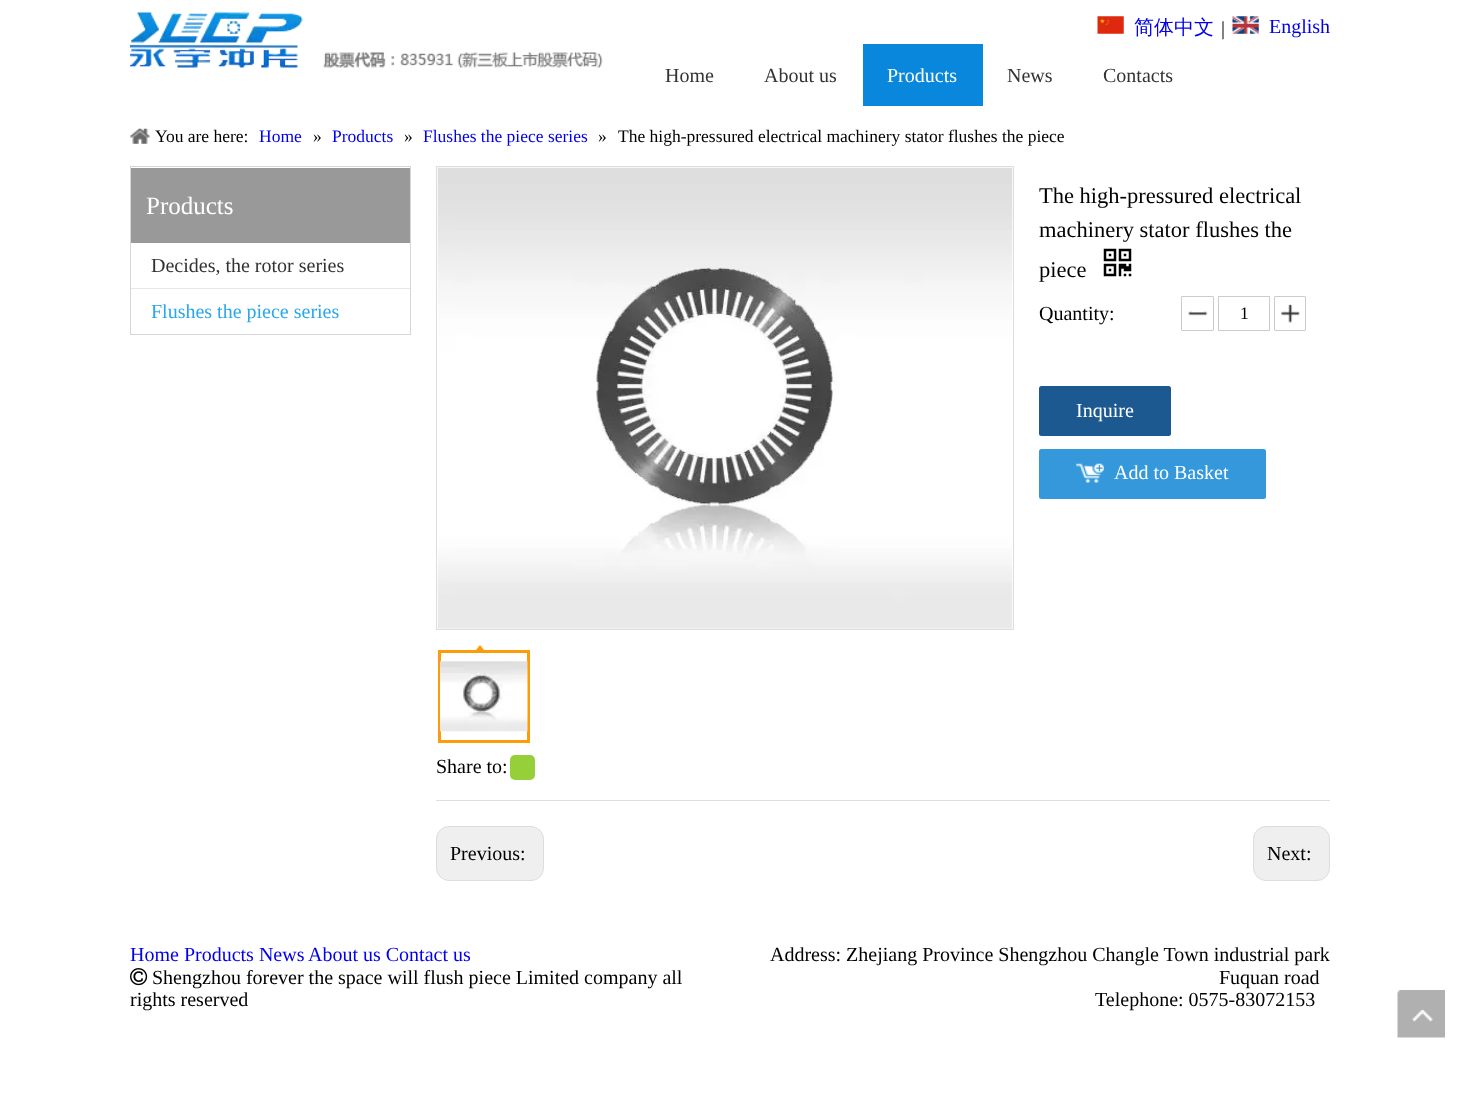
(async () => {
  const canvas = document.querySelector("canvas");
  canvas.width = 1459;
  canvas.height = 1107;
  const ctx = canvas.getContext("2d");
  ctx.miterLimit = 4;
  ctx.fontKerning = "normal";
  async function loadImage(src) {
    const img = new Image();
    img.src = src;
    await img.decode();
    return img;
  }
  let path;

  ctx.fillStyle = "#ffffff";
  ctx.fillRect(0, 0, 1459, 1107);
  ctx.drawImage(await loadImage("img/1.png"), 130, 12, 473, 56);
  ctx.drawImage(await loadImage("img/2.png"), 1097, 16, 27, 18);
  ctx.drawImage(await loadImage("img/3.png"), 1232, 16, 27, 18);
  ctx.fillStyle = "#0887dc";
  ctx.fillRect(863, 44, 120, 62);
  ctx.drawImage(await loadImage("img/4.png"), 130, 128, 20, 16);
  ctx.strokeStyle = "#d6d6d6";
  ctx.strokeRect(130.5, 166.5, 280, 168);
  ctx.fillStyle = "#999999";
  ctx.fillRect(131, 168, 279, 75);
  ctx.fillStyle = "#e7e7e7";
  ctx.fillRect(131, 288, 279, 1);
  ctx.drawImage(await loadImage("img/5.png"), 1103, 248, 29, 29);
  ctx.drawImage(await loadImage("img/6.png"), 1188, 311, 20, 5);
  ctx.beginPath();
  ctx.roundRect(1181.5, 296.5, 32, 34, 0.5);
  ctx.strokeStyle = "#cccccc";
  ctx.stroke();
  ctx.strokeRect(1218.5, 296.5, 51, 34);
  ctx.drawImage(await loadImage("img/7.png"), 1281, 304, 19, 19);
  ctx.beginPath();
  ctx.roundRect(1274.5, 296.5, 31, 34, 0.5);
  ctx.stroke();
  ctx.fillStyle = "#1d5991";
  ctx.beginPath();
  ctx.roundRect(1039, 386, 132, 50, 2.5);
  ctx.fill();
  ctx.fillStyle = "#3498db";
  ctx.beginPath();
  ctx.roundRect(1039, 449, 227, 50, 2.5);
  ctx.fill();
  ctx.drawImage(await loadImage("img/8.png"), 1076, 463, 28, 20);
  ctx.strokeStyle = "#dddddd";
  ctx.strokeRect(436.5, 166.5, 577, 463);
  ctx.drawImage(await loadImage("img/9.png"), 437, 167, 576, 462);
  ctx.strokeStyle = "#fe9b0a";
  ctx.lineWidth = 3;
  ctx.strokeRect(439.5, 651.5, 89, 90);
  ctx.fillStyle = "#fe9b0a";
  path = new Path2D("M486 652.5H474L480 645Z");
  ctx.fill(path);
  ctx.drawImage(await loadImage("img/10.png"), 440, 661, 88, 71);
  ctx.fillStyle = "#95d03a";
  ctx.beginPath();
  ctx.roundRect(510, 755, 25, 25, 5);
  ctx.fill();
  ctx.fillStyle = "#dfdfdf";
  ctx.fillRect(436, 800, 894, 1);
  ctx.fillStyle = "#efefef";
  ctx.beginPath();
  ctx.roundRect(436.5, 826.5, 107, 54, 12.5);
  ctx.fill();
  ctx.strokeStyle = "#dddddd";
  ctx.lineWidth = 1;
  ctx.stroke();
  ctx.beginPath();
  ctx.roundRect(1253.5, 826.5, 76, 54, 12.5);
  ctx.fill();
  ctx.stroke();
  ctx.drawImage(await loadImage("img/11.png"), 130, 968, 18, 18);
  ctx.drawImage(await loadImage("img/12.png"), 1397, 990, 48, 48);
  ctx.font = "500 20px WenQuanYi Zen Hei";
  ctx.fillStyle = "#0000ee";
  ctx.fillText("简体中文", 1134, 34);
  ctx.font = "20px Liberation Serif";
  ctx.fillStyle = "#000000";
  ctx.fillText("|", 1221, 35);
  ctx.fillStyle = "#0000ee";
  ctx.fillText("English", 1269, 33);
  ctx.fillStyle = "#333333";
  ctx.fillText("Home", 665, 82);
  ctx.fillText("About us", 764, 82);
  ctx.fillStyle = "#ffffff";
  ctx.fillText("Products", 887, 82);
  ctx.fillStyle = "#333333";
  ctx.fillText("News", 1007, 82);
  ctx.fillText("Contacts", 1103, 82);
  ctx.font = "17.5px Liberation Serif";
  ctx.fillStyle = "#000000";
  ctx.fillText("You are here:", 155, 142);
  ctx.fillStyle = "#0000ee";
  ctx.fillText("Home", 259, 142);
  ctx.fillStyle = "#000000";
  ctx.fillText("»", 313, 142);
  ctx.fillStyle = "#0000ee";
  ctx.fillText("Products", 332, 142);
  ctx.fillStyle = "#000000";
  ctx.fillText("»", 404, 142);
  ctx.fillStyle = "#0000ee";
  ctx.fillText("Flushes the piece series", 423, 142);
  ctx.fillStyle = "#000000";
  ctx.fillText("»", 598, 142);
  ctx.fillText("The high-pressured electrical machinery stator flushes the piece", 618, 142);
  ctx.font = "25px Liberation Serif";
  ctx.fillStyle = "#ffffff";
  ctx.fillText("Products", 146, 214);
  ctx.font = "20px Liberation Serif";
  ctx.fillStyle = "#333333";
  ctx.fillText("Decides, the rotor series", 151, 272);
  ctx.fillStyle = "#2aa7ea";
  ctx.fillText("Flushes the piece series", 151, 318);
  ctx.font = "22.5px Liberation Serif";
  ctx.fillStyle = "#000000";
  for (const [text, x, y] of [
    ["The high-pressured electrical", 1039, 203],
    ["machinery stator flushes the", 1039, 237],
    ["piece", 1039, 277],
  ]) {
    ctx.fillText(text, x, y);
  }
  ctx.font = "20px Liberation Serif";
  ctx.fillText("Quantity:", 1039, 320);
  ctx.font = "17.5px Liberation Serif";
  ctx.fillText("1", 1240, 319);
  ctx.font = "20px Liberation Serif";
  ctx.fillStyle = "#ffffff";
  ctx.fillText("Inquire", 1076, 417);
  ctx.fillText("Add to Basket", 1114, 479);
  ctx.fillStyle = "#000000";
  for (const [text, x, y] of [
    ["Share to:", 436, 773],
    ["Previous:", 450, 860],
    ["Next:", 1267, 860],
  ]) {
    ctx.fillText(text, x, y);
  }
  ctx.fillStyle = "#0000ee";
  ctx.fillText("Home Products News", 130, 961);
  ctx.fillText("About us Contact us", 308, 961);
  ctx.fillStyle = "#000000";
  for (const [text, x, y] of [
    ["Shengzhou forever the space will flush piece Limited company all", 152, 984],
    ["rights reserved", 130, 1006],
    ["Address: Zhejiang Province Shengzhou Changle Town industrial park", 770, 961],
    ["Fuquan road", 1219, 984],
    ["Telephone: 0575-83072153", 1095, 1006],
  ]) {
    ctx.fillText(text, x, y);
  }
})();
